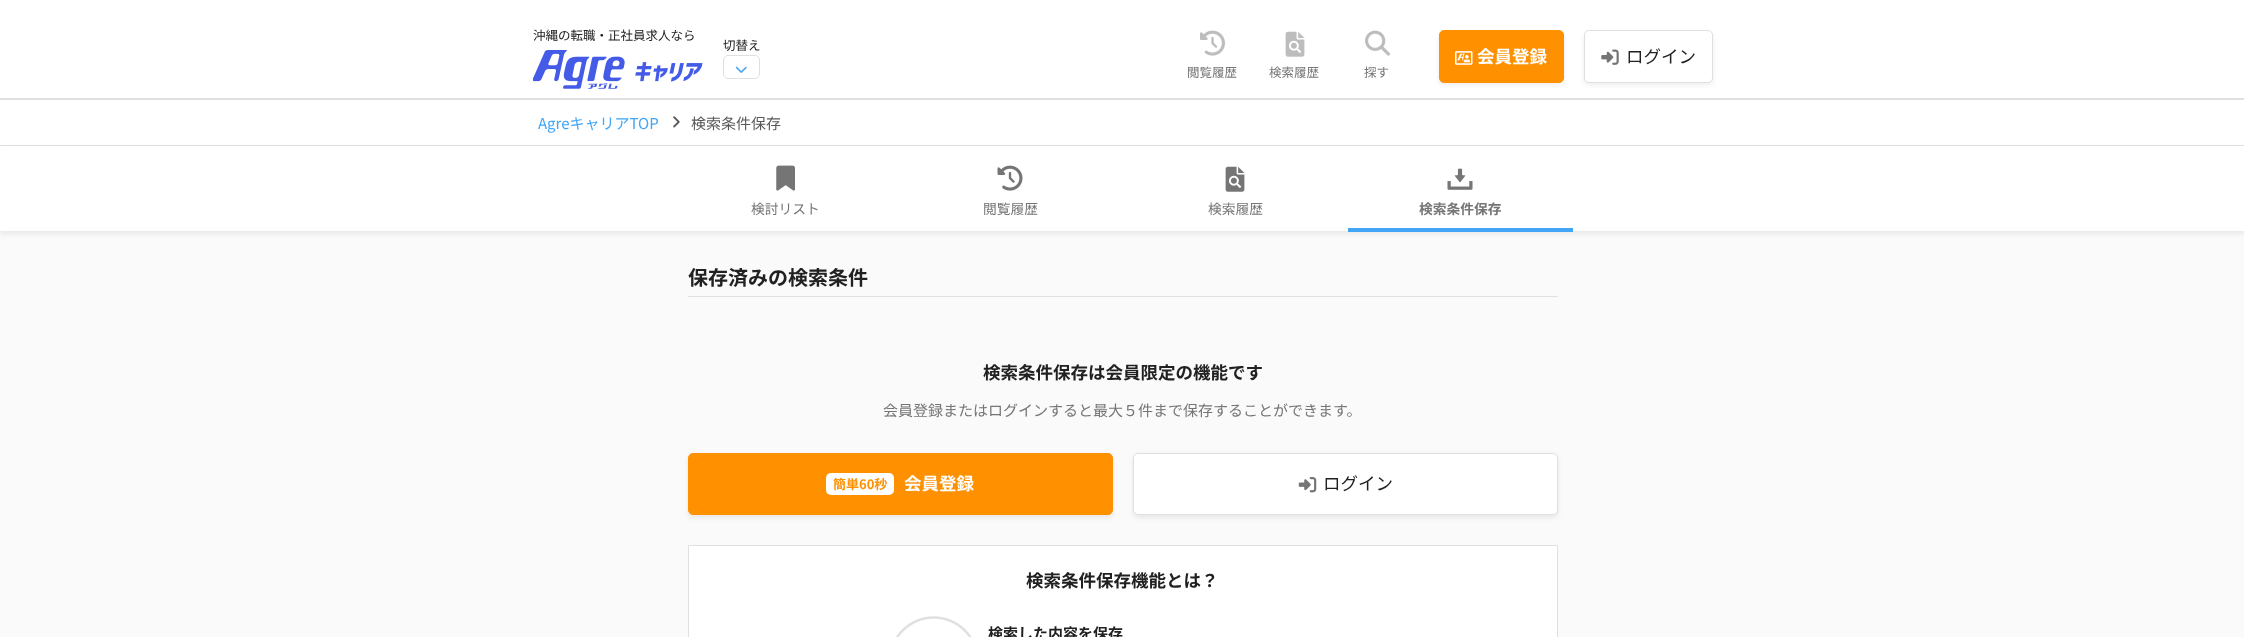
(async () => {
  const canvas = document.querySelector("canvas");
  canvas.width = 2244;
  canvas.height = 637;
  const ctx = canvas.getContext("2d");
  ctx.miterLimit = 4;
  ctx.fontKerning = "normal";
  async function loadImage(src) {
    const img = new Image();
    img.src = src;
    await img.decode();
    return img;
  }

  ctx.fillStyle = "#fafafa";
  ctx.fillRect(0, 0, 2244, 637);
  ctx.fillStyle = "#ffffff";
  ctx.fillRect(0, 0, 2244, 98);
  ctx.fillStyle = "#e0e0e0";
  ctx.fillRect(0, 98, 2244, 2);
  ctx.drawImage(await loadImage("img/1.png"), 533, 50, 170, 39);
  ctx.beginPath();
  ctx.roundRect(723.5, 55.5, 36, 23, 4.5);
  ctx.strokeStyle = "#e0e0e0";
  ctx.stroke();
  ctx.drawImage(await loadImage("img/2.png"), 735, 66, 12, 7);
  ctx.fillStyle = "rgba(0, 0, 0, 0.07)";
  ctx.filter = "blur(2.5px)";
  ctx.beginPath();
  ctx.roundRect(1439, 33, 125, 52, 5);
  ctx.fill();
  ctx.filter = "none";
  ctx.fillStyle = "#ff9100";
  ctx.beginPath();
  ctx.roundRect(1439.5, 30.5, 124, 52, 4.5);
  ctx.fill();
  ctx.strokeStyle = "#ff9100";
  ctx.stroke();
  ctx.drawImage(await loadImage("img/3.png"), 1455, 51, 18, 14);
  ctx.fillStyle = "rgba(0, 0, 0, 0.07)";
  ctx.filter = "blur(2.5px)";
  ctx.beginPath();
  ctx.roundRect(1584, 33, 129, 52, 5);
  ctx.fill();
  ctx.filter = "none";
  ctx.fillStyle = "#ffffff";
  ctx.beginPath();
  ctx.roundRect(1584.5, 30.5, 128, 52, 4.5);
  ctx.fill();
  ctx.strokeStyle = "#e0e0e0";
  ctx.stroke();
  ctx.drawImage(await loadImage("img/4.png"), 1601, 49, 18, 16);
  ctx.drawImage(await loadImage("img/5.png"), 1200, 30, 25, 26);
  ctx.drawImage(await loadImage("img/6.png"), 1285, 31, 20, 26);
  ctx.drawImage(await loadImage("img/7.png"), 1365, 30, 25, 26);
  ctx.fillRect(0, 100, 2244, 45);
  ctx.fillStyle = "#e0e0e0";
  ctx.fillRect(0, 145, 2244, 1);
  ctx.drawImage(await loadImage("img/8.png"), 673, 116, 7, 12);
  ctx.fillStyle = "rgba(0, 0, 0, 0.07)";
  ctx.filter = "blur(2.5px)";
  ctx.beginPath();
  ctx.rect(0, 149, 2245, 85);
  ctx.fill();
  ctx.filter = "none";
  ctx.fillStyle = "#ffffff";
  ctx.fillRect(0, 146, 2244, 85);
  ctx.drawImage(await loadImage("img/9.png"), 776, 165, 19, 26);
  ctx.drawImage(await loadImage("img/10.png"), 997, 165, 26, 26);
  ctx.drawImage(await loadImage("img/11.png"), 1225, 166, 20, 26);
  ctx.fillStyle = "#42a5f5";
  ctx.fillRect(1348, 228, 225, 4);
  ctx.drawImage(await loadImage("img/12.png"), 1447, 168, 26, 22);
  ctx.fillStyle = "#e0e0e0";
  ctx.fillRect(688, 296, 870, 1);
  ctx.fillStyle = "rgba(0, 0, 0, 0.07)";
  ctx.filter = "blur(2.5px)";
  ctx.beginPath();
  ctx.roundRect(688, 455, 425, 63, 5);
  ctx.fill();
  ctx.filter = "none";
  ctx.fillStyle = "#ff9100";
  ctx.beginPath();
  ctx.roundRect(688.5, 453.5, 424, 61, 4.5);
  ctx.fill();
  ctx.strokeStyle = "#ff9100";
  ctx.stroke();
  ctx.fillStyle = "#ffffff";
  ctx.beginPath();
  ctx.roundRect(826, 473, 68, 22, 5);
  ctx.fill();
  ctx.fillStyle = "rgba(0, 0, 0, 0.07)";
  ctx.filter = "blur(2.5px)";
  ctx.beginPath();
  ctx.roundRect(1133, 455, 425, 63, 5);
  ctx.fill();
  ctx.filter = "none";
  ctx.fillStyle = "#ffffff";
  ctx.beginPath();
  ctx.roundRect(1133.5, 453.5, 424, 61, 4.5);
  ctx.fill();
  ctx.strokeStyle = "#e0e0e0";
  ctx.stroke();
  ctx.drawImage(await loadImage("img/13.png"), 1298, 477, 19, 16);
  ctx.beginPath();
  ctx.rect(688.5, 545.5, 869, 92);
  ctx.fill();
  ctx.stroke();
  ctx.drawImage(await loadImage("img/14.png"), 896, 616, 76, 21);
  ctx.font = "12.5px Noto Sans JP";
  ctx.fillStyle = "#212121";
  ctx.fillText("沖縄の転職・正社員求人なら", 533, 40);
  ctx.fillText("切替え", 723, 50);
  ctx.font = "bold 17.5px Noto Sans JP";
  ctx.fillStyle = "#ffffff";
  ctx.fillText("会員登録", 1477, 63);
  ctx.font = "17.5px Noto Sans JP";
  ctx.fillStyle = "#212121";
  ctx.fillText("ログイン", 1626, 63);
  ctx.font = "12.5px Noto Sans JP";
  ctx.fillStyle = "#757575";
  for (const [text, x, y] of [
    ["閲覧履歴", 1187, 77],
    ["検索履歴", 1269, 77],
    ["探す", 1364, 77],
  ]) {
    ctx.fillText(text, x, y);
  }
  ctx.font = "15px Noto Sans JP";
  ctx.fillStyle = "#42a5f5";
  ctx.fillText("AgreキャリアTOP", 538, 129);
  ctx.fillStyle = "#595959";
  ctx.fillText("検索条件保存", 691, 129);
  ctx.font = "13.75px Noto Sans JP";
  ctx.fillStyle = "#757575";
  for (const [text, x, y] of [
    ["検討リスト", 751, 214],
    ["閲覧履歴", 983, 214],
    ["検索履歴", 1208, 214],
  ]) {
    ctx.fillText(text, x, y);
  }
  ctx.font = "bold 13.75px Noto Sans JP";
  ctx.fillText("検索条件保存", 1419, 214);
  ctx.font = "bold 20px Noto Sans JP";
  ctx.fillStyle = "#212121";
  ctx.fillText("保存済みの検索条件", 688, 285);
  ctx.font = "bold 17.5px Noto Sans JP";
  ctx.fillText("検索条件保存は会員限定の機能です", 983, 379);
  ctx.font = "15px Noto Sans JP";
  ctx.fillStyle = "#757575";
  ctx.fillText("会員登録またはログインすると最大５件まで保存することができます。", 883, 416);
  ctx.font = "bold 13px Noto Sans JP";
  ctx.fillStyle = "#ff9100";
  ctx.fillText("簡単60秒", 833, 489);
  ctx.font = "bold 17.5px Noto Sans JP";
  ctx.fillStyle = "#ffffff";
  ctx.fillText("会員登録", 904, 490);
  ctx.font = "17.5px Noto Sans JP";
  ctx.fillStyle = "#212121";
  ctx.fillText("ログイン", 1323, 490);
  ctx.font = "bold 17.5px Noto Sans JP";
  ctx.fillText("検索条件保存機能とは？", 1026, 587);
  ctx.font = "bold 15px Noto Sans JP";
  ctx.fillText("検索した内容を保存", 988, 639);
})();
